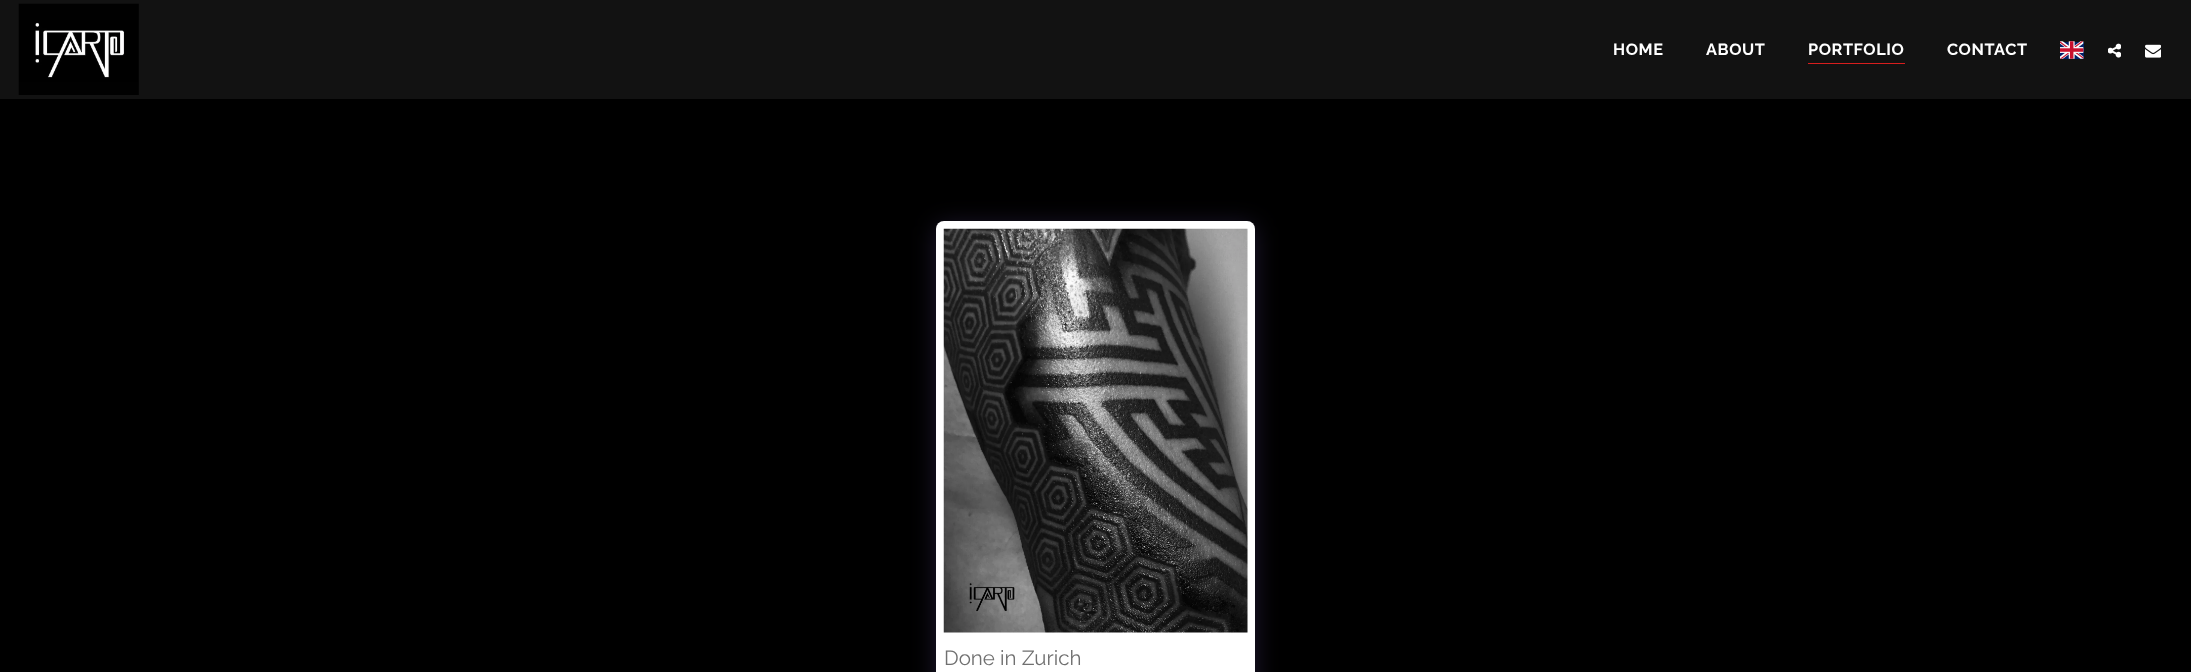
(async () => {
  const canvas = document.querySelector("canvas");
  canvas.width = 2191;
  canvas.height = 672;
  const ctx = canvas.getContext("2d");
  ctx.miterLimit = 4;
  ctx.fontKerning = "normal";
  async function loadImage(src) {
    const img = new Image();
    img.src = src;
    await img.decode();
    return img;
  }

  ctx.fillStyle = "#000000";
  ctx.fillRect(0, 0, 2191, 672);
  ctx.fillStyle = "#121212";
  ctx.fillRect(0, 0, 2191, 99);
  ctx.drawImage(await loadImage("img/1.png"), 18, 3, 121, 92);
  ctx.fillStyle = "#d71e1e";
  ctx.fillRect(1808, 63, 97, 1);
  ctx.drawImage(await loadImage("img/2.png"), 2060, 41, 24, 18);
  ctx.drawImage(await loadImage("img/3.png"), 2108, 43, 13, 15);
  ctx.drawImage(await loadImage("img/4.png"), 2145, 44, 16, 14);
  ctx.fillStyle = "rgba(77, 63, 122, 0.4)";
  ctx.filter = "blur(12.5px)";
  ctx.beginPath();
  ctx.roundRect(936, 225, 319, 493, 8);
  ctx.fill();
  ctx.filter = "none";
  ctx.fillStyle = "#ffffff";
  ctx.beginPath();
  ctx.roundRect(936, 221, 319, 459, 8);
  ctx.fill();
  ctx.drawImage(await loadImage("img/5.png"), 943, 228, 305, 405);
  ctx.letterSpacing = "0.6px";
  ctx.font = "bold 16.25px Raleway";
  for (const [text, x, y] of [
    ["HOME", 1613, 55],
    ["ABOUT", 1706, 55],
    ["PORTFOLIO", 1808, 55],
    ["CONTACT", 1947, 55],
  ]) {
    ctx.fillText(text, x, y);
  }
  ctx.letterSpacing = "0px";
  ctx.font = "20.5px Raleway";
  ctx.fillStyle = "#707070";
  ctx.fillText("Done in Zurich", 944, 665);
})();
